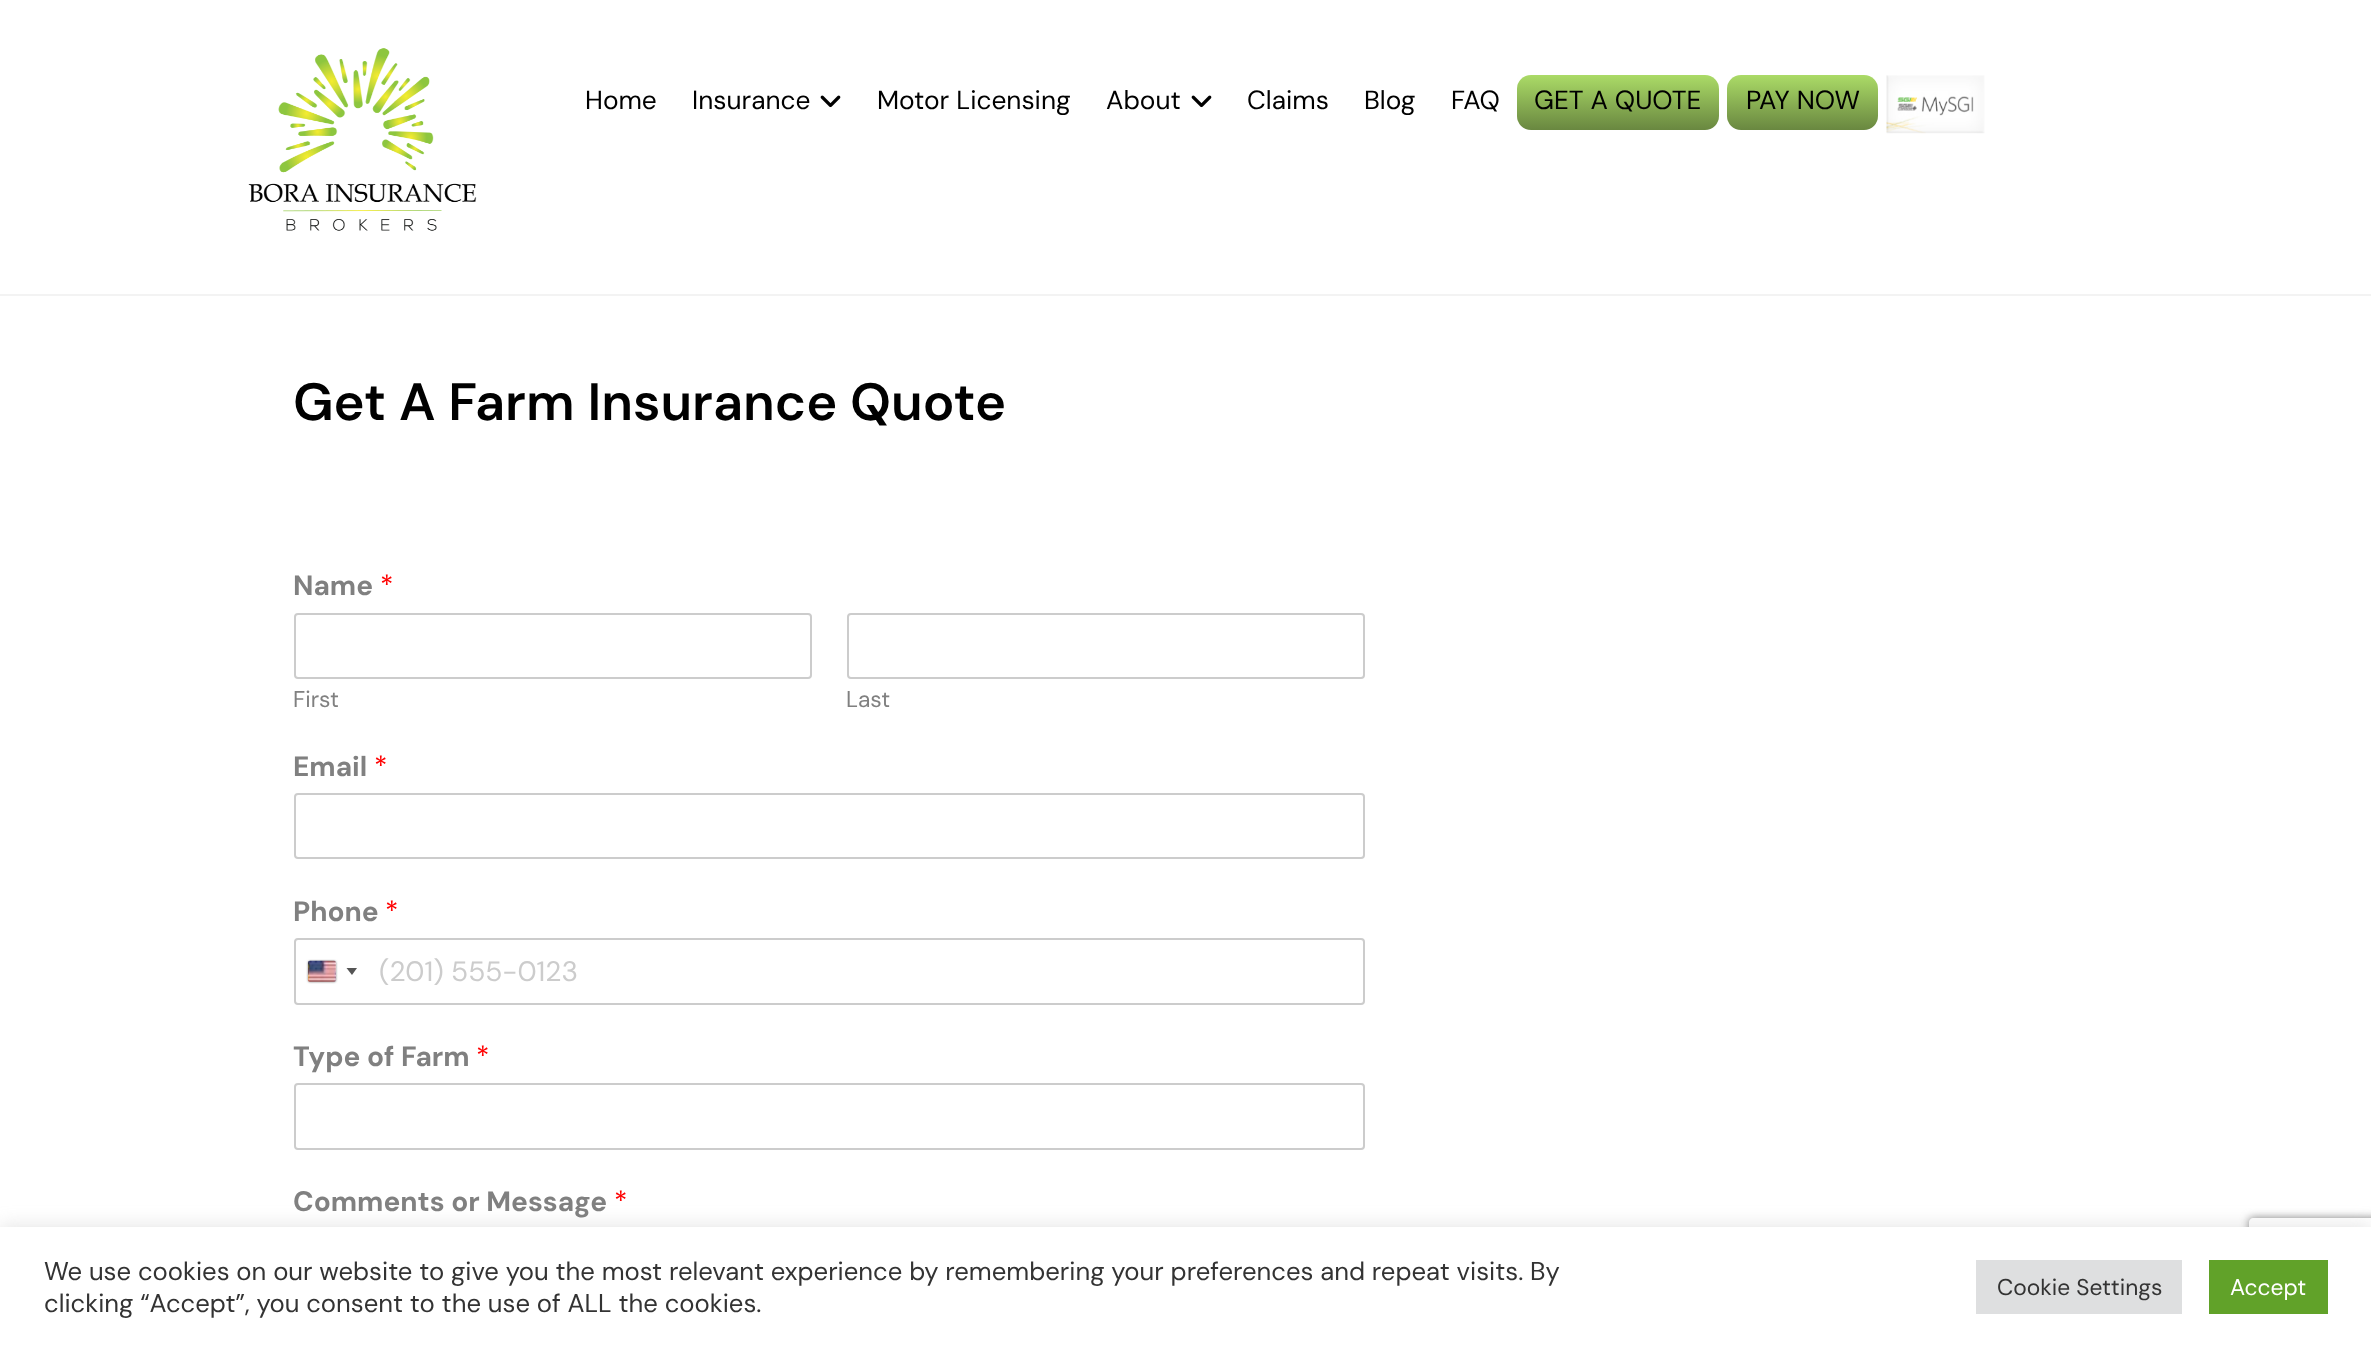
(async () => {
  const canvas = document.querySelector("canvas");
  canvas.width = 2371;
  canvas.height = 1346;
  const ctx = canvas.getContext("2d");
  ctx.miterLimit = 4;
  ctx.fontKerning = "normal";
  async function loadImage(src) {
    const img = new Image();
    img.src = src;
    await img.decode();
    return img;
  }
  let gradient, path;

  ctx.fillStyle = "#ffffff";
  ctx.fillRect(0, 0, 2371, 1346);
  ctx.fillStyle = "#f3f3f3";
  ctx.fillRect(0, 294, 2371, 2);
  ctx.drawImage(await loadImage("img/1.png"), 248, 48, 229, 183);
  ctx.drawImage(await loadImage("img/2.png"), 820, 95, 21, 13);
  ctx.drawImage(await loadImage("img/2.png"), 1191, 95, 21, 13);
  gradient = ctx.createLinearGradient(1618, 75, 1618, 130);
  gradient.addColorStop(0, "#abdb67");
  gradient.addColorStop(1, "#698740");
  ctx.fillStyle = gradient;
  ctx.beginPath();
  ctx.roundRect(1517, 75, 202, 55, 14);
  ctx.fill();
  gradient = ctx.createLinearGradient(1803, 75, 1803, 130);
  gradient.addColorStop(0, "#abdb67");
  gradient.addColorStop(1, "#698740");
  ctx.fillStyle = gradient;
  ctx.beginPath();
  ctx.roundRect(1727, 75, 151, 55, 14);
  ctx.fill();
  ctx.drawImage(await loadImage("img/3.png"), 1886, 75, 99, 59);
  ctx.beginPath();
  ctx.roundRect(295, 614, 516, 64, 3);
  ctx.strokeStyle = "#cccccc";
  ctx.lineWidth = 2;
  ctx.stroke();
  ctx.beginPath();
  ctx.roundRect(848, 614, 516, 64, 3);
  ctx.stroke();
  ctx.beginPath();
  ctx.roundRect(295, 794, 1069, 64, 3);
  ctx.stroke();
  ctx.beginPath();
  ctx.roundRect(295, 939, 1069, 65, 3);
  ctx.stroke();
  ctx.fillStyle = "#888888";
  ctx.filter = "blur(1px)";
  ctx.beginPath();
  ctx.roundRect(308, 961, 28, 21, 2);
  ctx.fill();
  ctx.filter = "none";
  ctx.drawImage(await loadImage("img/4.png"), 308, 960, 28, 22);
  ctx.fillStyle = "#555555";
  path = new Path2D("M346.5 968H357L352 975Z");
  ctx.fill(path);
  ctx.beginPath();
  ctx.roundRect(295, 1084, 1069, 65, 3);
  ctx.stroke();
  ctx.save();
  path = new Path2D("M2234 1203H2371V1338H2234ZM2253 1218H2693C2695 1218 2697 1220 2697 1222V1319C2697 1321 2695 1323 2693 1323H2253C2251 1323 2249 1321 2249 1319V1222C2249 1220 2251 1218 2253 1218Z");
  ctx.clip(path, "evenodd");
  ctx.fillStyle = "#808080";
  ctx.filter = "blur(4.5px)";
  ctx.beginPath();
  ctx.roundRect(2249, 1218, 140, 105, 4);
  ctx.fill();
  ctx.filter = "none";
  ctx.restore();
  ctx.fillStyle = "rgba(172, 171, 171, 0.3)";
  ctx.filter = "blur(9px)";
  ctx.beginPath();
  ctx.rect(0, 1225, 2371, 121);
  ctx.fill();
  ctx.filter = "none";
  for (const [x, y, w, h, color] of [
    [0, 1227, 2371, 119, "#ffffff"],
    [1976, 1260, 206, 54, "#dedfe0"],
    [2209, 1260, 119, 54, "#61a229"],
  ]) {
    ctx.fillStyle = color;
    ctx.fillRect(x, y, w, h);
  }
  ctx.font = "26.25px DM Sans";
  ctx.fillStyle = "#000000";
  for (const [text, x, y] of [
    ["Home", 585, 109],
    ["Insurance", 692, 109],
    ["Motor Licensing", 877, 109],
    ["About", 1106, 109],
    ["Claims", 1247, 109],
    ["Blog", 1364, 109],
    ["FAQ", 1451, 109],
    ["GET A QUOTE", 1534, 109],
    ["PAY NOW", 1746, 109],
  ]) {
    ctx.fillText(text, x, y);
  }
  ctx.font = "600 52.5px DM Sans";
  ctx.fillText("Get A Farm Insurance Quote", 293, 420);
  ctx.font = "bold 28px DM Sans";
  ctx.fillStyle = "#808080";
  ctx.fillText("Name", 293, 595);
  ctx.font = "28px DM Sans";
  ctx.fillStyle = "#ff0000";
  ctx.fillText("*", 380, 595);
  ctx.font = "22.75px DM Sans";
  ctx.fillStyle = "#808080";
  ctx.fillText("First", 293, 707);
  ctx.fillText("Last", 846, 707);
  ctx.font = "bold 28px DM Sans";
  ctx.fillText("Email", 293, 776);
  ctx.font = "28px DM Sans";
  ctx.fillStyle = "#ff0000";
  ctx.fillText("*", 374, 776);
  ctx.font = "bold 28px DM Sans";
  ctx.fillStyle = "#808080";
  ctx.fillText("Phone", 293, 921);
  ctx.font = "28px DM Sans";
  ctx.fillStyle = "#ff0000";
  ctx.fillText("*", 385, 921);
  ctx.fillStyle = "#cccccc";
  ctx.fillText("(201) 555-0123", 379, 981);
  ctx.font = "bold 28px DM Sans";
  ctx.fillStyle = "#808080";
  ctx.fillText("Type of Farm", 293, 1066);
  ctx.font = "28px DM Sans";
  ctx.fillStyle = "#ff0000";
  ctx.fillText("*", 476, 1066);
  ctx.font = "bold 28px DM Sans";
  ctx.fillStyle = "#808080";
  ctx.fillText("Comments or Message", 293, 1211);
  ctx.font = "28px DM Sans";
  ctx.fillStyle = "#ff0000";
  ctx.fillText("*", 614, 1211);
  ctx.font = "25.67px DM Sans";
  ctx.fillStyle = "#333333";
  ctx.fillText("We use cookies on our website to give you the most relevant experience by remembering your preferences and repeat visits. By", 44, 1280);
  ctx.fillText("clicking “Accept”, you consent to the use of ALL the cookies.", 44, 1312);
  ctx.font = "22.75px DM Sans";
  ctx.fillText("Cookie Settings", 1997, 1295);
  ctx.fillStyle = "#ffffff";
  ctx.fillText("Accept", 2230, 1295);
})();
